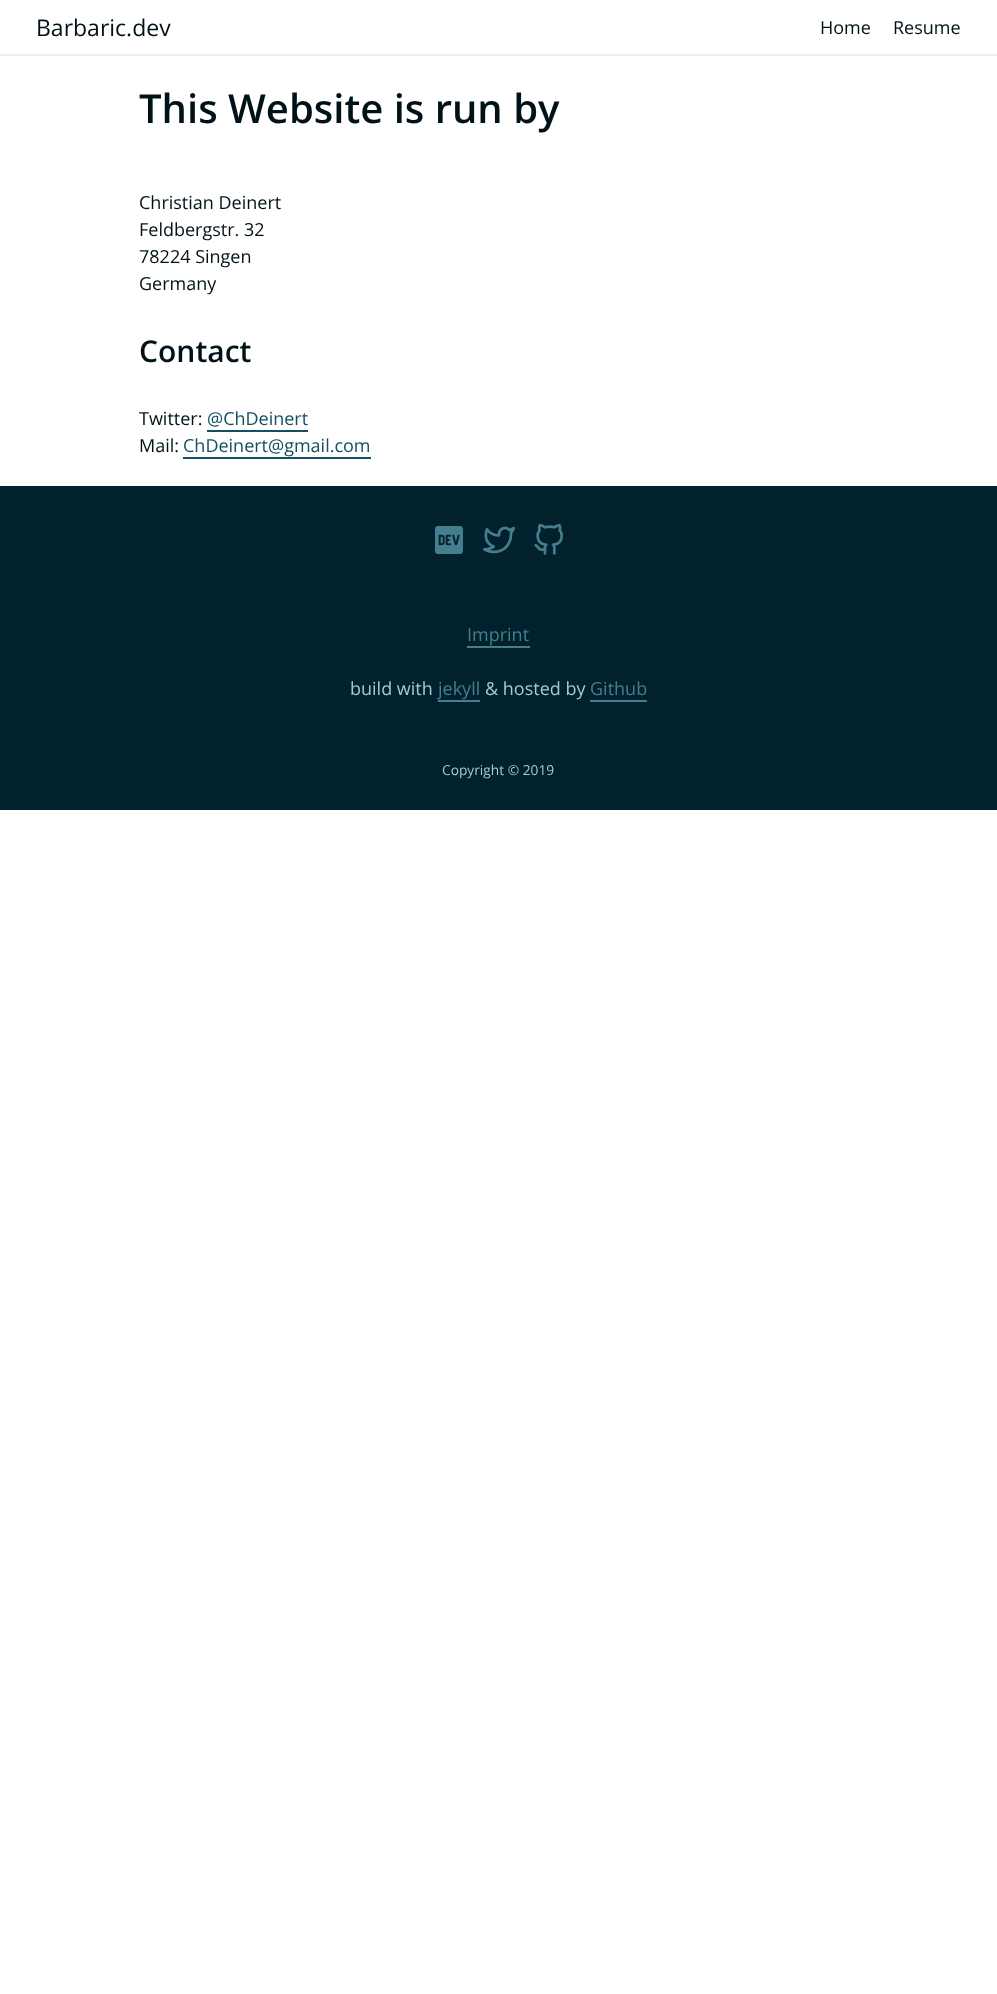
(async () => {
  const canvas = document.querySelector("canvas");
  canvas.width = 997;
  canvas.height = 1994;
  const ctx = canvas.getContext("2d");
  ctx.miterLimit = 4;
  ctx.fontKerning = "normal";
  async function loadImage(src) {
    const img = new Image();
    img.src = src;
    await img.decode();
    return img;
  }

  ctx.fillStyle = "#ffffff";
  ctx.fillRect(0, 0, 997, 1994);
  for (const [x, y, w, h, color] of [
    [0, 54, 997, 2, "#e8edef"],
    [207, 430, 101, 2, "#154f62"],
    [183, 457, 188, 2, "#154f62"],
    [0, 486, 997, 324, "#01222d"],
  ]) {
    ctx.fillStyle = color;
    ctx.fillRect(x, y, w, h);
  }
  ctx.drawImage(await loadImage("img/1.png"), 435, 526, 28, 28);
  ctx.drawImage(await loadImage("img/2.png"), 483, 526, 32, 28);
  ctx.drawImage(await loadImage("img/3.png"), 534, 524, 29, 31);
  for (const [x, y, w, h, color] of [
    [467, 646, 63, 2, "#467d8f"],
    [438, 700, 42, 2, "#467d8f"],
    [590, 700, 57, 2, "#467d8f"],
  ]) {
    ctx.fillStyle = color;
    ctx.fillRect(x, y, w, h);
  }
  ctx.font = "23px Open Sans";
  ctx.fillStyle = "#001218";
  ctx.fillText("Barbaric.dev", 36, 36);
  ctx.font = "18px Open Sans";
  ctx.fillText("Home", 820, 34);
  ctx.fillText("Resume", 893, 34);
  ctx.font = "600 40px Open Sans";
  ctx.fillText("This Website is run by", 139, 123);
  ctx.font = "18px Open Sans";
  for (const [text, x, y] of [
    ["Christian Deinert", 139, 209],
    ["Feldbergstr. 32", 139, 236],
    ["78224 Singen", 139, 263],
    ["Germany", 139, 290],
  ]) {
    ctx.fillText(text, x, y);
  }
  ctx.font = "600 30px Open Sans";
  ctx.fillText("Contact", 139, 362);
  ctx.font = "18px Open Sans";
  ctx.fillText("Twitter:", 139, 425);
  ctx.fillStyle = "#154f62";
  ctx.fillText("@ChDeinert", 207, 425);
  ctx.fillStyle = "#001218";
  ctx.fillText("Mail:", 139, 452);
  ctx.fillStyle = "#154f62";
  ctx.fillText("ChDeinert@gmail.com", 183, 452);
  ctx.fillStyle = "#467d8f";
  ctx.fillText("Imprint", 467, 641);
  ctx.fillStyle = "#a8c9d4";
  ctx.fillText("build with", 350, 695);
  ctx.fillStyle = "#467d8f";
  ctx.fillText("jekyll", 438, 695);
  ctx.fillStyle = "#a8c9d4";
  ctx.fillText("& hosted by", 485, 695);
  ctx.fillStyle = "#467d8f";
  ctx.fillText("Github", 590, 695);
  ctx.font = "13.75px Open Sans";
  ctx.fillStyle = "#a8c9d4";
  ctx.fillText("Copyright © 2019", 442, 775);
})();
